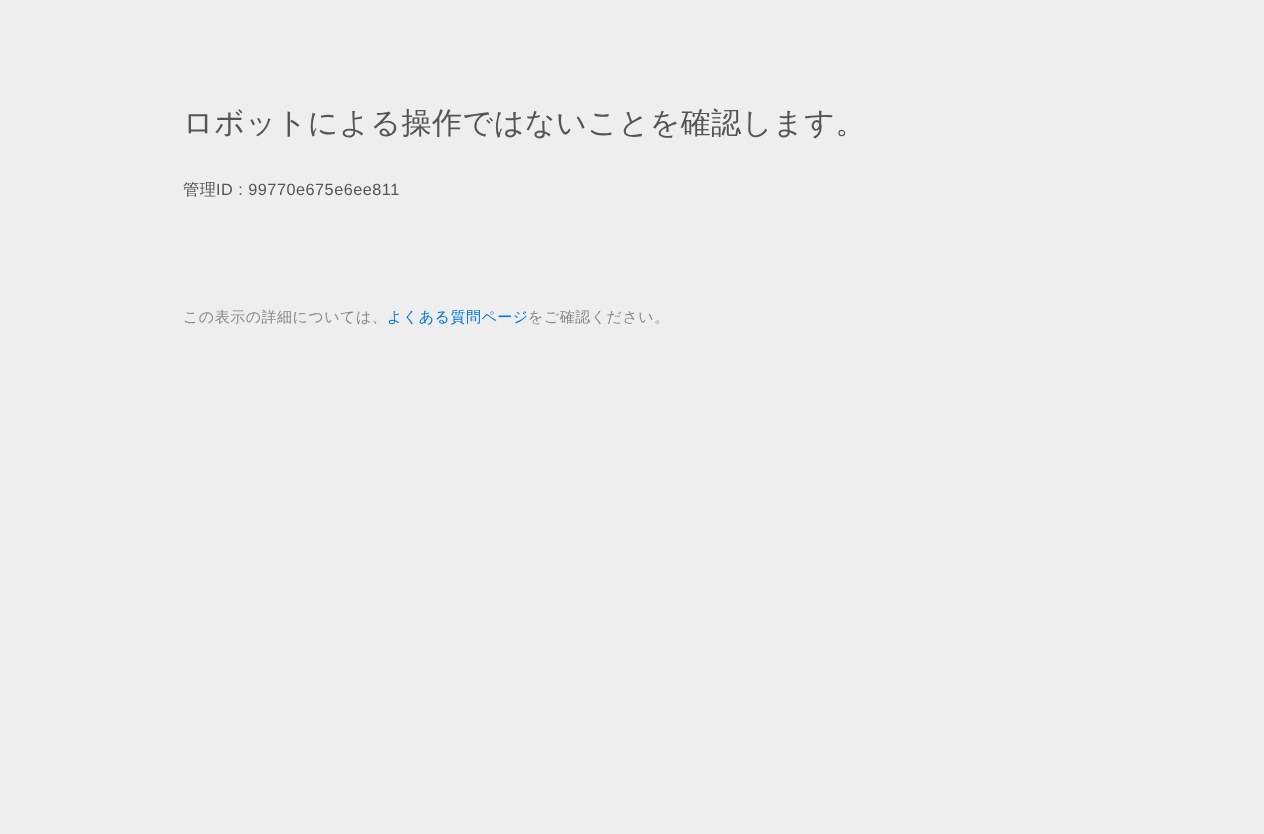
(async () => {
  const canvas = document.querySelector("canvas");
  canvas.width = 1264;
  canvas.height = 834;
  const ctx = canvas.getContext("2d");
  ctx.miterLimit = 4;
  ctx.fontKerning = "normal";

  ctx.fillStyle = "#eeeeee";
  ctx.fillRect(0, 0, 1264, 834);
  ctx.letterSpacing = "0.5px";
  ctx.font = "500 30px WenQuanYi Zen Hei";
  ctx.fillStyle = "#555555";
  ctx.fillText("ロボットによる操作ではないことを確認します。", 183, 133);
  ctx.font = "500 16.25px WenQuanYi Zen Hei";
  ctx.fillText("管理", 183, 195);
  ctx.font = "16.25px Liberation Sans";
  ctx.fillText("ID : 99770e675e6ee811", 216, 195);
  ctx.font = "500 15px WenQuanYi Zen Hei";
  ctx.fillStyle = "#888888";
  ctx.fillText("この表示の詳細については、", 183, 322);
  ctx.fillStyle = "#0276d7";
  ctx.fillText("よくある質問ページ", 387, 322);
  ctx.fillStyle = "#888888";
  ctx.fillText("をご確認ください。", 528, 322);
})();
